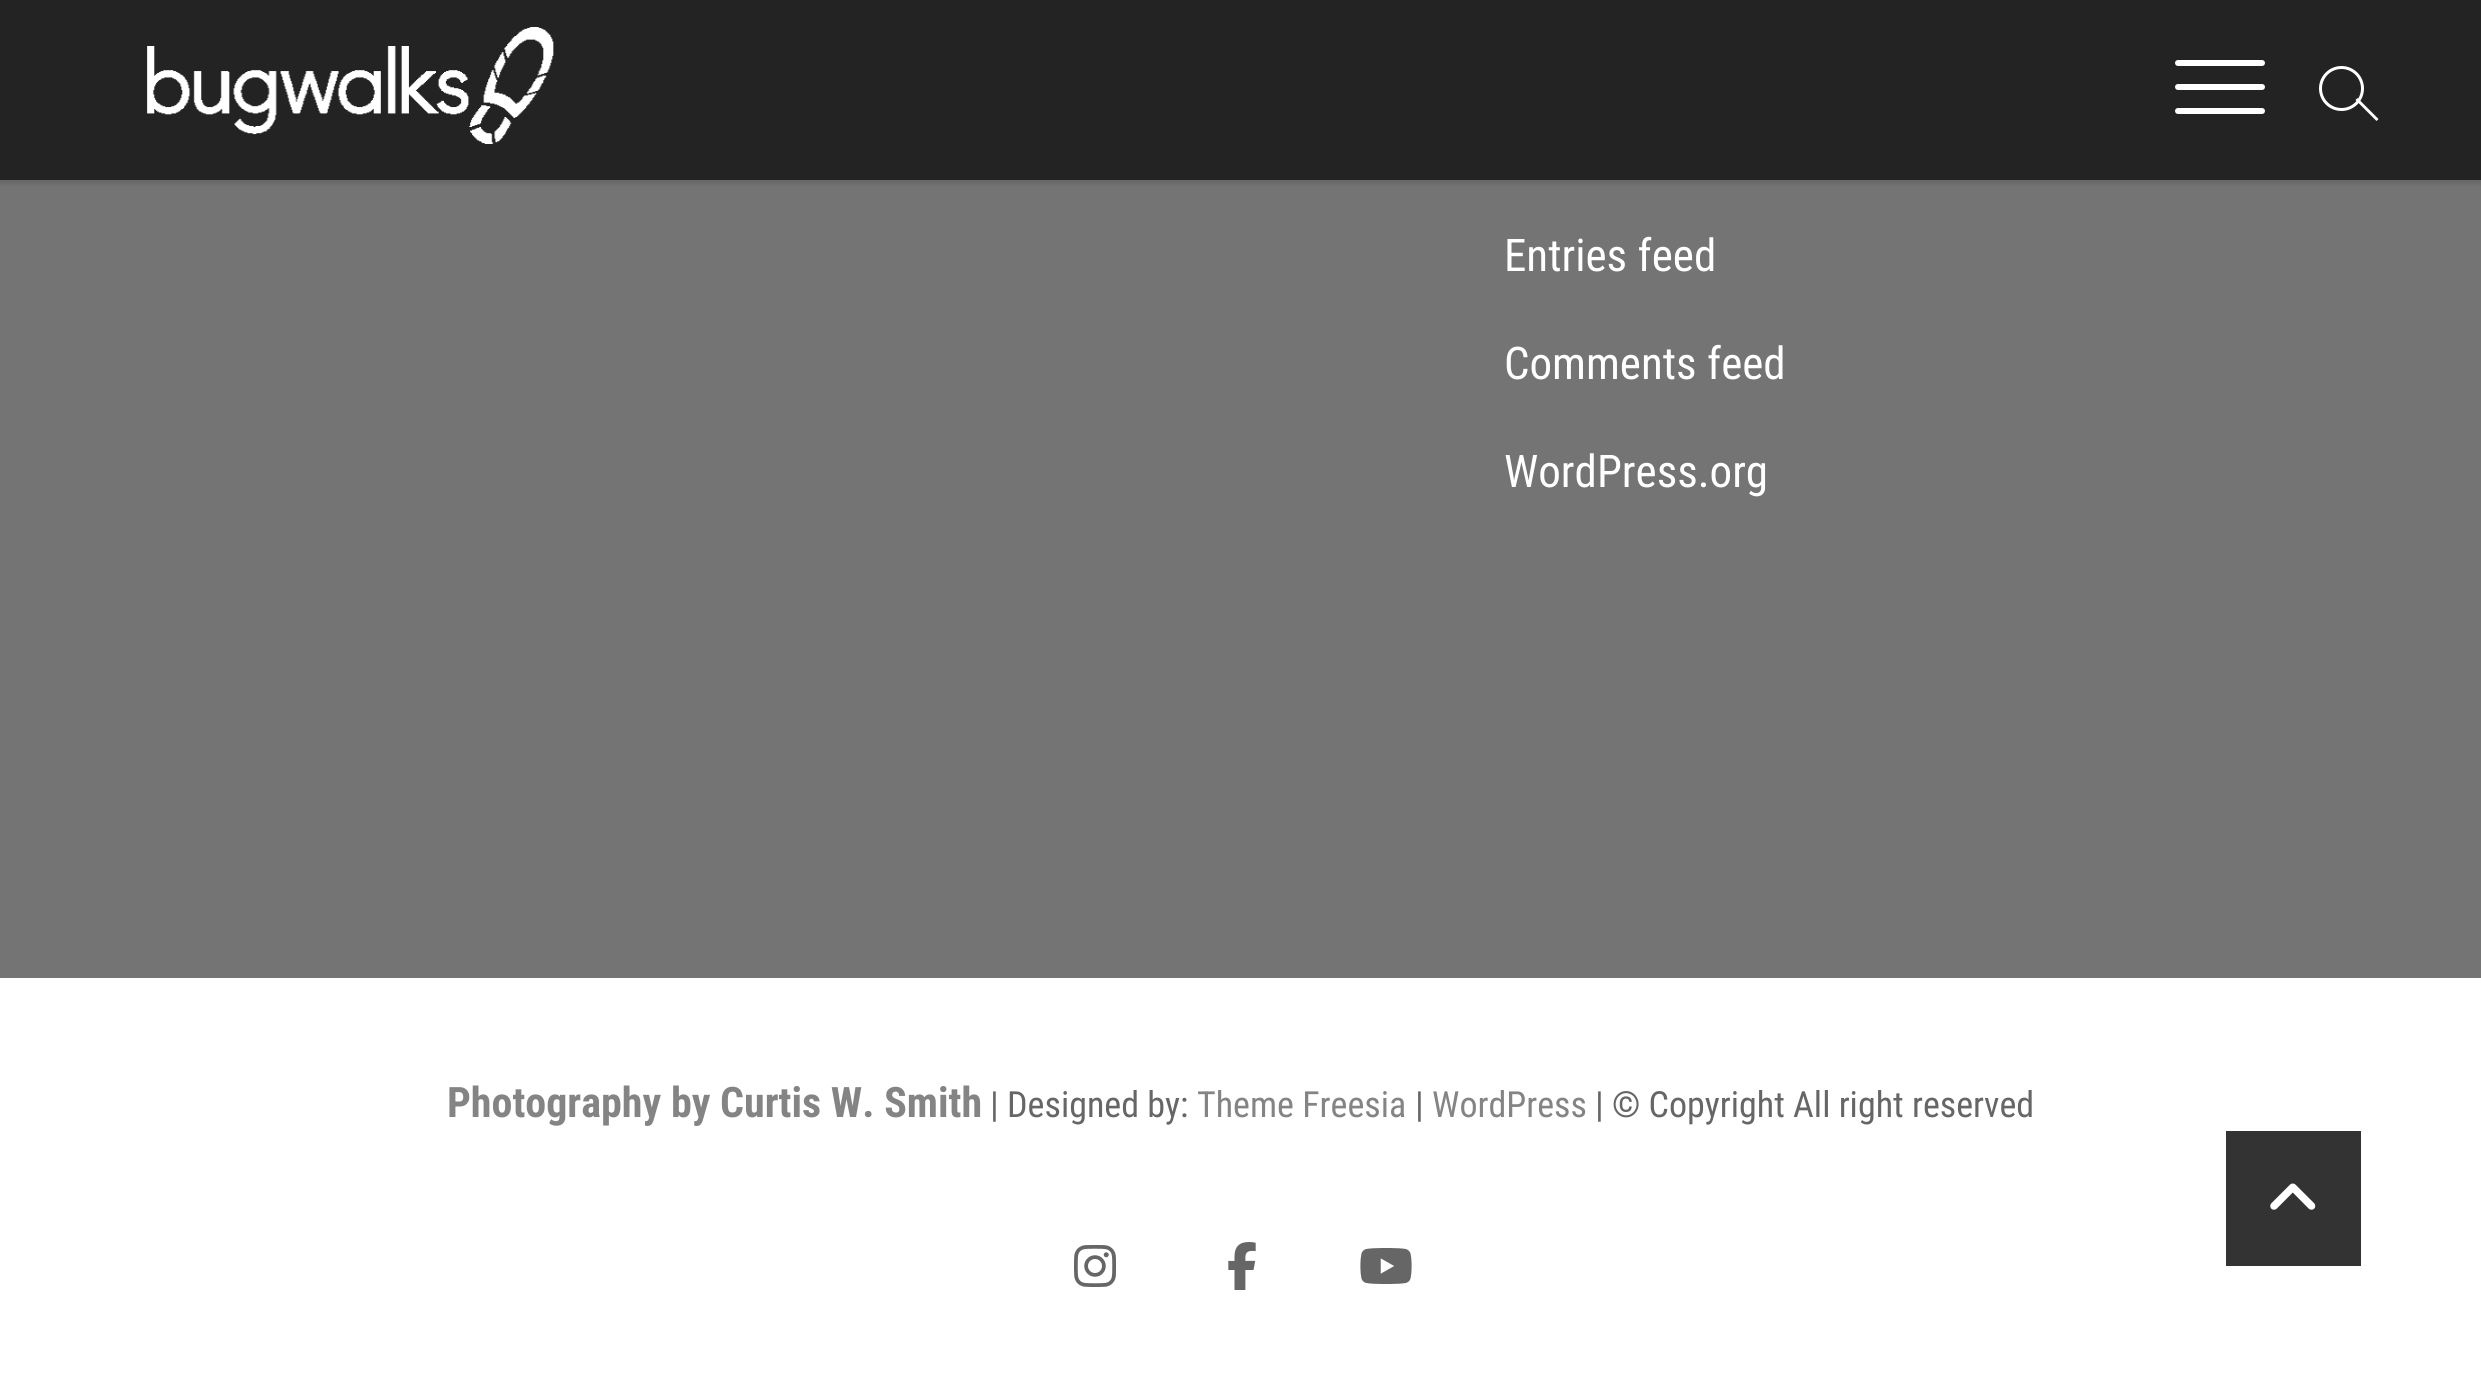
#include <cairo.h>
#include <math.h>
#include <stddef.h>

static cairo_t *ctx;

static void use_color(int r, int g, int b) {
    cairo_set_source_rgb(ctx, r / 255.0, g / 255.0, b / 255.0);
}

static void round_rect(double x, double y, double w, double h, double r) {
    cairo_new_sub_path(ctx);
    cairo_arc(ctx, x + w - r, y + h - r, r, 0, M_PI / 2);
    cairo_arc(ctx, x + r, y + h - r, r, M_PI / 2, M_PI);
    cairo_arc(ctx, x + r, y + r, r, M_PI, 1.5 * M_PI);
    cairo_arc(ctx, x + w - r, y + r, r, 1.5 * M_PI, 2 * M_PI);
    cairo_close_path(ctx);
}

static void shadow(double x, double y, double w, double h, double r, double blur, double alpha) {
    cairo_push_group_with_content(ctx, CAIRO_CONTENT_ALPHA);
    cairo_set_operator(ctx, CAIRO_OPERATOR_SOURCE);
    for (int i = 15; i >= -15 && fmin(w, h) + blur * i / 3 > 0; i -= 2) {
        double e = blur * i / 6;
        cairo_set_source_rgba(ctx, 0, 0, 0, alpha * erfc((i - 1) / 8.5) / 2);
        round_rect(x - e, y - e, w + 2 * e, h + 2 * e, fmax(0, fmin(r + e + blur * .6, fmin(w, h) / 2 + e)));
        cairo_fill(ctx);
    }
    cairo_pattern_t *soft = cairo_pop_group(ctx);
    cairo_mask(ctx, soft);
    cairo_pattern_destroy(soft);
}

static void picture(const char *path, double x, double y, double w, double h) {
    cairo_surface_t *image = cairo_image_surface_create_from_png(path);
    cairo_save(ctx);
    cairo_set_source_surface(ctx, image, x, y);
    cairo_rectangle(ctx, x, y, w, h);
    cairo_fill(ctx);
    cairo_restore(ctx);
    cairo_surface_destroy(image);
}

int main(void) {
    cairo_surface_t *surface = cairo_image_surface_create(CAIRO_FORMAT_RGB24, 2481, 1384);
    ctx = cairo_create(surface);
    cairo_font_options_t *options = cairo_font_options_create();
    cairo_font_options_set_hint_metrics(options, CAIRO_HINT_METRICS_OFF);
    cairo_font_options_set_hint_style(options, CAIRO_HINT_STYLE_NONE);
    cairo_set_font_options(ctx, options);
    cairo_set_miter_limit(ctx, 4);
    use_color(255, 255, 255);
    cairo_paint(ctx);
    use_color(116, 116, 116);
    cairo_rectangle(ctx, 0, 0, 2481, 978);
    cairo_fill(ctx);
    cairo_save(ctx);
    cairo_rectangle(ctx, 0, 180, 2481, 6);
    cairo_clip(ctx);
    use_color(0, 0, 0);
    shadow(0, 3, 2481, 180, 0, 3, 0.15);
    cairo_restore(ctx);
    cairo_set_source_rgba(ctx, 0, 0, 0, 0.7);
    cairo_rectangle(ctx, 0, 0, 2481, 180);
    cairo_fill(ctx);
    picture("img1.png", 147, 27, 407, 117);
    use_color(255, 255, 255);
    round_rect(2175, 84, 90, 6, 3);
    cairo_fill(ctx);
    round_rect(2175, 60, 90, 6, 3);
    cairo_fill(ctx);
    round_rect(2175, 108, 90, 6, 3);
    cairo_fill(ctx);
    cairo_arc(ctx, 2341.5, 88.5, 21, 0, 2 * M_PI);
    cairo_set_line_width(ctx, 3);
    cairo_stroke(ctx);
    cairo_new_path(ctx);
    cairo_move_to(ctx, 2355.5, 100);
    cairo_line_to(ctx, 2357.5, 98);
    cairo_line_to(ctx, 2378.5, 119);
    cairo_line_to(ctx, 2376.5, 121);
    cairo_close_path(ctx);
    cairo_fill(ctx);
    cairo_select_font_face(ctx, "Roboto Condensed", CAIRO_FONT_SLANT_NORMAL, CAIRO_FONT_WEIGHT_NORMAL);
    cairo_set_font_size(ctx, 45);
    cairo_move_to(ctx, 1504, 271);
    cairo_show_text(ctx, "Entries feed");
    cairo_move_to(ctx, 1504, 379);
    cairo_show_text(ctx, "Comments feed");
    cairo_move_to(ctx, 1504, 487);
    cairo_show_text(ctx, "WordPress.org");
    cairo_select_font_face(ctx, "Roboto Condensed", CAIRO_FONT_SLANT_NORMAL, CAIRO_FONT_WEIGHT_BOLD);
    cairo_set_font_size(ctx, 42);
    use_color(132, 132, 132);
    cairo_move_to(ctx, 447, 1117);
    cairo_show_text(ctx, "Photography by Curtis W. Smith");
    cairo_select_font_face(ctx, "Roboto Condensed", CAIRO_FONT_SLANT_NORMAL, CAIRO_FONT_WEIGHT_NORMAL);
    cairo_set_font_size(ctx, 36);
    use_color(102, 102, 102);
    cairo_move_to(ctx, 990, 1117);
    cairo_show_text(ctx, "| Designed by:");
    use_color(132, 132, 132);
    cairo_move_to(ctx, 1197, 1117);
    cairo_show_text(ctx, "Theme Freesia");
    use_color(102, 102, 102);
    cairo_move_to(ctx, 1415, 1117);
    cairo_show_text(ctx, "|");
    use_color(132, 132, 132);
    cairo_move_to(ctx, 1432, 1117);
    cairo_show_text(ctx, "WordPress");
    use_color(102, 102, 102);
    cairo_move_to(ctx, 1595, 1117);
    cairo_show_text(ctx, "| © Copyright All right reserved");
    picture("img2.png", 1074, 1245, 42, 42);
    picture("img3.png", 1228, 1242, 28, 48);
    picture("img4.png", 1360, 1248, 52, 36);
    use_color(51, 51, 51);
    cairo_rectangle(ctx, 2226, 1131, 135, 135);
    cairo_fill(ctx);
    picture("img5.png", 2270, 1183, 46, 27);
    cairo_surface_write_to_png(surface, "result.png");
    cairo_font_options_destroy(options);
    cairo_destroy(ctx);
    cairo_surface_destroy(surface);
    return 0;
}
